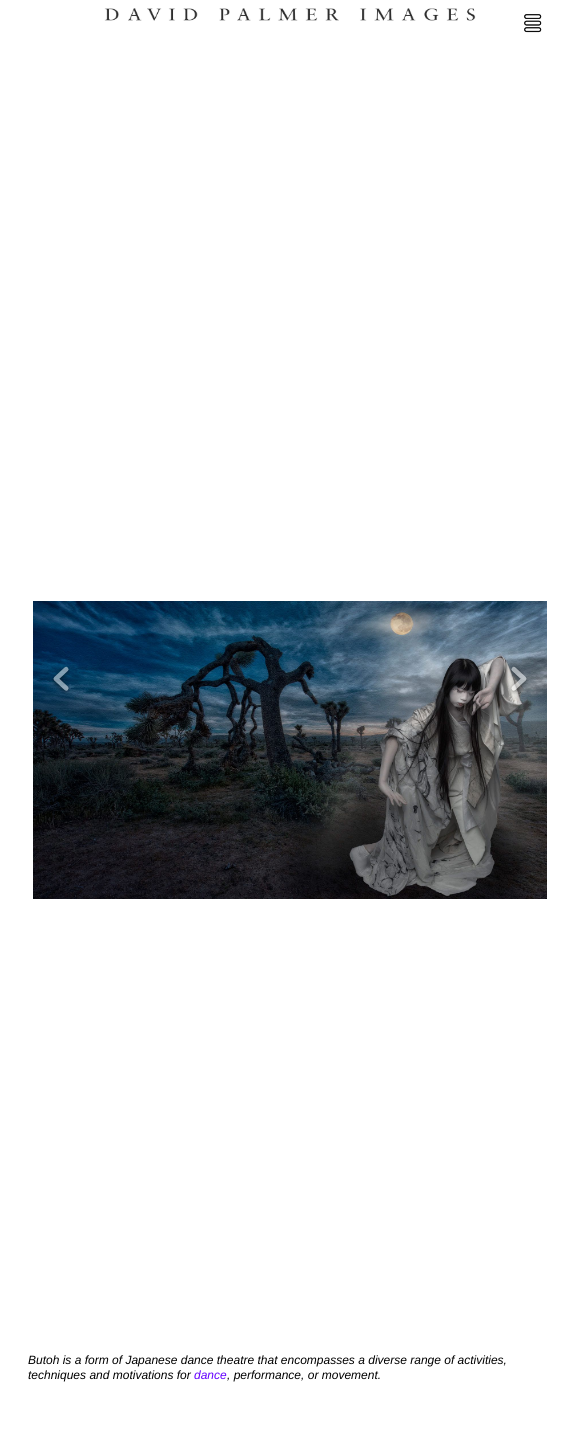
#include <cairo.h>
#include <math.h>
#include <stddef.h>

static cairo_t *ctx;

static void use_color(int r, int g, int b) {
    cairo_set_source_rgb(ctx, r / 255.0, g / 255.0, b / 255.0);
}

static void picture(const char *path, double x, double y, double w, double h) {
    cairo_surface_t *image = cairo_image_surface_create_from_png(path);
    cairo_save(ctx);
    cairo_set_source_surface(ctx, image, x, y);
    cairo_rectangle(ctx, x, y, w, h);
    cairo_fill(ctx);
    cairo_restore(ctx);
    cairo_surface_destroy(image);
}

int main(void) {
    cairo_surface_t *surface = cairo_image_surface_create(CAIRO_FORMAT_RGB24, 580, 1454);
    ctx = cairo_create(surface);
    cairo_font_options_t *options = cairo_font_options_create();
    cairo_font_options_set_hint_metrics(options, CAIRO_HINT_METRICS_OFF);
    cairo_font_options_set_hint_style(options, CAIRO_HINT_STYLE_NONE);
    cairo_set_font_options(ctx, options);
    cairo_set_miter_limit(ctx, 4);
    use_color(255, 255, 255);
    cairo_paint(ctx);
    picture("img1.png", 104, 8, 372, 13);
    picture("img2.png", 524, 14, 18, 19);
    picture("img3.png", 33, 601, 514, 298);
    picture("img4.png", 52, 666, 18, 28);
    picture("img5.png", 509, 666, 20, 28);
    cairo_select_font_face(ctx, "Liberation Sans", CAIRO_FONT_SLANT_ITALIC, CAIRO_FONT_WEIGHT_NORMAL);
    cairo_set_font_size(ctx, 12);
    use_color(0, 0, 0);
    cairo_move_to(ctx, 28, 1364);
    cairo_show_text(ctx, "Butoh is a form of Japanese dance theatre that encompasses a diverse range of activities,");
    cairo_move_to(ctx, 28, 1379);
    cairo_show_text(ctx, "techniques and motivations for");
    use_color(100, 0, 255);
    cairo_move_to(ctx, 194, 1379);
    cairo_show_text(ctx, "dance");
    use_color(0, 0, 0);
    cairo_move_to(ctx, 227, 1379);
    cairo_show_text(ctx, ", performance, or movement.");
    cairo_surface_write_to_png(surface, "result.png");
    cairo_font_options_destroy(options);
    cairo_destroy(ctx);
    cairo_surface_destroy(surface);
    return 0;
}
